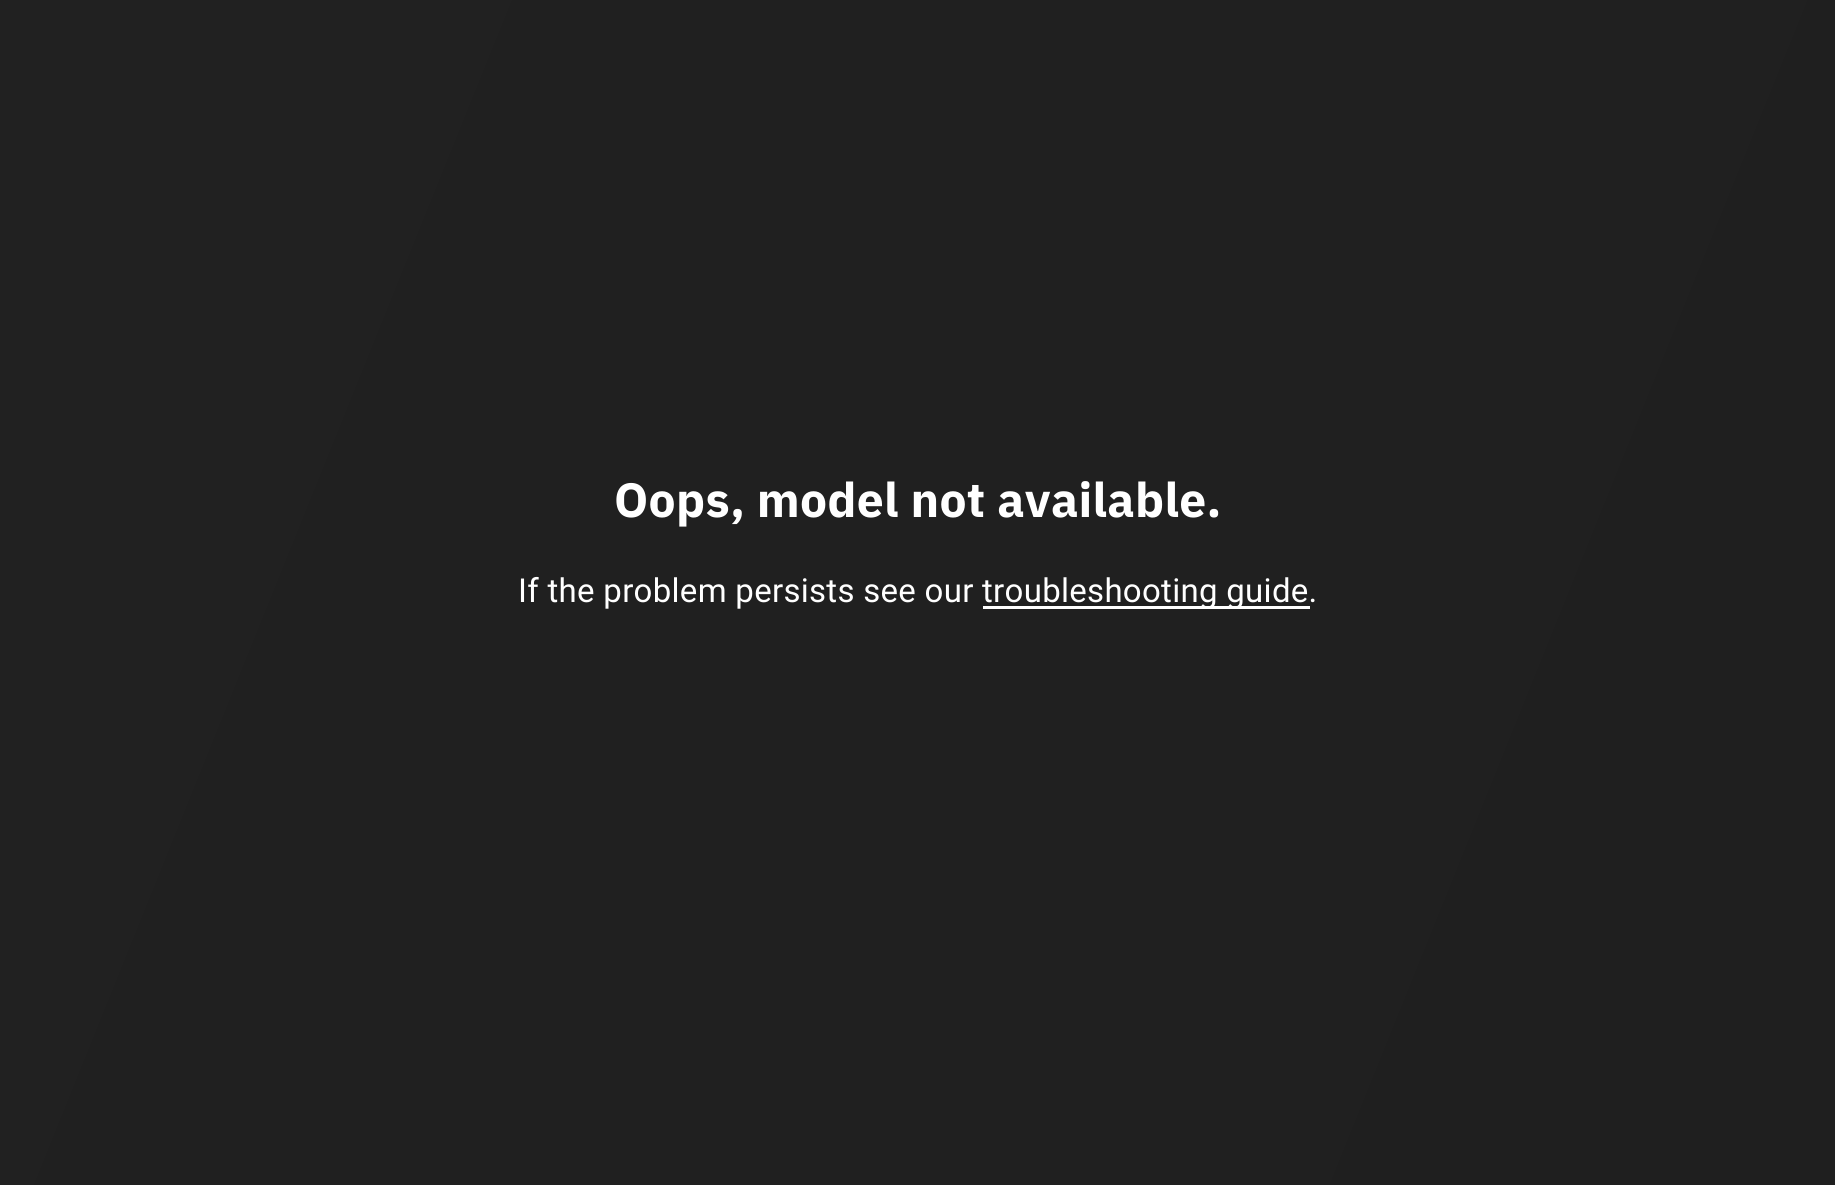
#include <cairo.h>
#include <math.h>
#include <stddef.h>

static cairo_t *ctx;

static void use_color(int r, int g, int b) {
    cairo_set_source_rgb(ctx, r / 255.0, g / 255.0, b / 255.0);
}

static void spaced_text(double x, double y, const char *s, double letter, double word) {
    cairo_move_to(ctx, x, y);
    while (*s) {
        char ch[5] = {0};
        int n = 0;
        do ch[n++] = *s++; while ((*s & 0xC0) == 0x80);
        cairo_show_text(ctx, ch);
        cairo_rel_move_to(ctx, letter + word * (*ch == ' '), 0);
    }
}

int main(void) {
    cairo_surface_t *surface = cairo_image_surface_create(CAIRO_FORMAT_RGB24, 1835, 1185);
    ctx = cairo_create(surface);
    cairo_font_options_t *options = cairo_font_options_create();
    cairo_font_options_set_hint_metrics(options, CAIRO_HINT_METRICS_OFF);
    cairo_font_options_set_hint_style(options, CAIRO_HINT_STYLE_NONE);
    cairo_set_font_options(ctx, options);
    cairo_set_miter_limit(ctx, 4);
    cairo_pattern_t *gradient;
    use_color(255, 255, 255);
    cairo_paint(ctx);
    gradient = cairo_pattern_create_linear(-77, 191, 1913, 994);
    cairo_pattern_add_color_stop_rgba(gradient, 0, 0.129, 0.129, 0.129, 1);
    cairo_pattern_add_color_stop_rgba(gradient, 1, 0.122, 0.122, 0.122, 1);
    cairo_set_source(ctx, gradient);
    cairo_pattern_destroy(gradient);
    cairo_rectangle(ctx, 0, 0, 1835, 1185);
    cairo_fill(ctx);
    cairo_select_font_face(ctx, "IBM Plex Sans", CAIRO_FONT_SLANT_NORMAL, CAIRO_FONT_WEIGHT_BOLD);
    cairo_set_font_size(ctx, 48);
    use_color(255, 255, 255);
    spaced_text(614, 517, "Oops, model not available.", 0.3, 0);
    cairo_select_font_face(ctx, "Roboto", CAIRO_FONT_SLANT_NORMAL, CAIRO_FONT_WEIGHT_NORMAL);
    cairo_set_font_size(ctx, 33);
    spaced_text(518, 602, "If the problem persists see our", 0.3, 0);
    cairo_rectangle(ctx, 983, 606, 327, 3);
    cairo_fill(ctx);
    spaced_text(982, 602, "troubleshooting guide.", 0.3, 0);
    cairo_surface_write_to_png(surface, "result.png");
    cairo_font_options_destroy(options);
    cairo_destroy(ctx);
    cairo_surface_destroy(surface);
    return 0;
}
